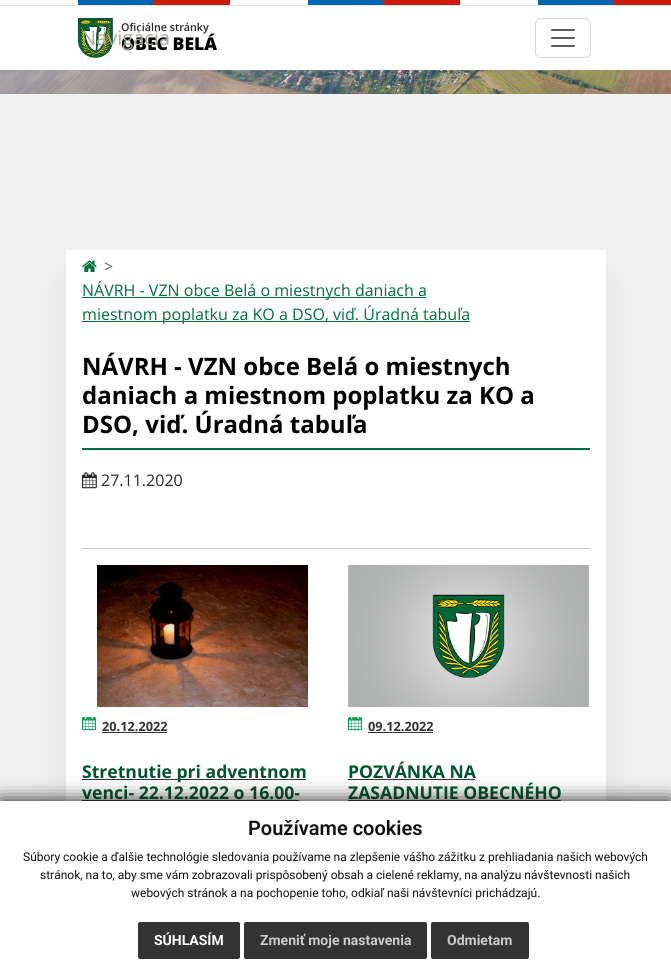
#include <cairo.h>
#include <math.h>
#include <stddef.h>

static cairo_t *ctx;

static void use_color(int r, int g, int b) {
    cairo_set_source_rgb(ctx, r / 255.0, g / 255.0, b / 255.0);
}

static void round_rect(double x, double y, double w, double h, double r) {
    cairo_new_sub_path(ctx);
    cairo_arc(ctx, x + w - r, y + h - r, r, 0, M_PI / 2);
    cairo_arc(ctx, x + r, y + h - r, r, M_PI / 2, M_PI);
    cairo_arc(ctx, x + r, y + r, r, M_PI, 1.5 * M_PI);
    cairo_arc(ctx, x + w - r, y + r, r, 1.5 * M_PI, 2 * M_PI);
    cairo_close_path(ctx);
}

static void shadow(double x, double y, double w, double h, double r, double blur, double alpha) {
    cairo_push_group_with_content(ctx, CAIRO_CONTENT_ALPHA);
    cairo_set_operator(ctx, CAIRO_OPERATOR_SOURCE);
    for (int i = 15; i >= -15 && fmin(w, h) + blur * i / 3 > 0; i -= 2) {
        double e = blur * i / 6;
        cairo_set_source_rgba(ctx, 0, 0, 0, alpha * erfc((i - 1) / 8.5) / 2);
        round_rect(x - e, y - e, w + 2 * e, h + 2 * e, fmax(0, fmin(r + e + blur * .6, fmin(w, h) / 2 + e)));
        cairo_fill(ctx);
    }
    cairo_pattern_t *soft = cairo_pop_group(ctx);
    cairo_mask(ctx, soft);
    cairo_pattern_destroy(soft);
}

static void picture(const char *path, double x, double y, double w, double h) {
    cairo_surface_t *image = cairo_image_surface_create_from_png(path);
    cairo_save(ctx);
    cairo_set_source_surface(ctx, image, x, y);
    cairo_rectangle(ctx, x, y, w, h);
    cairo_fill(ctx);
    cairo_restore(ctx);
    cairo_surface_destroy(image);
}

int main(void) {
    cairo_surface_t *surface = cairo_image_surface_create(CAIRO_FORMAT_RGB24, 671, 968);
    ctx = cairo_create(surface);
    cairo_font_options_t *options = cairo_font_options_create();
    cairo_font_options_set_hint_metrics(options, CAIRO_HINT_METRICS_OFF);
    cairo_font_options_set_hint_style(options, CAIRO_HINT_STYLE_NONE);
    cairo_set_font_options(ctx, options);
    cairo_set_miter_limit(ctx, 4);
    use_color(241, 241, 241);
    cairo_paint(ctx);
    picture("img1.png", 0, 0, 671, 5);
    use_color(255, 255, 255);
    cairo_rectangle(ctx, 0, 6, 671, 64);
    cairo_fill(ctx);
    use_color(230, 230, 230);
    cairo_rectangle(ctx, 0, 5, 671, 1);
    cairo_fill(ctx);
    picture("img2.png", 78, 18, 35, 40);
    cairo_select_font_face(ctx, "Open Sans SemiBold", CAIRO_FONT_SLANT_NORMAL, CAIRO_FONT_WEIGHT_NORMAL);
    cairo_set_font_size(ctx, 10.75);
    use_color(40, 40, 40);
    cairo_move_to(ctx, 121, 31);
    cairo_show_text(ctx, "Oficiálne stránky");
    cairo_select_font_face(ctx, "Open Sans ExtraBold", CAIRO_FONT_SLANT_NORMAL, CAIRO_FONT_WEIGHT_NORMAL);
    cairo_set_font_size(ctx, 17.6);
    use_color(0, 0, 0);
    cairo_move_to(ctx, 121, 50);
    cairo_show_text(ctx, "OBEC BELÁ");
    cairo_select_font_face(ctx, "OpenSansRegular", CAIRO_FONT_SLANT_NORMAL, CAIRO_FONT_WEIGHT_NORMAL);
    cairo_set_font_size(ctx, 20);
    use_color(166, 173, 161);
    cairo_move_to(ctx, 81, 45);
    cairo_show_text(ctx, "Navigácia");
    round_rect(535.5, 18.5, 55, 39, 5.5);
    use_color(217, 217, 217);
    cairo_set_line_width(ctx, 1);
    cairo_stroke(ctx);
    picture("img3.png", 551, 29, 24, 18);
    picture("img4.png", 0, 70, 671, 24);
    use_color(0, 0, 0);
    shadow(66, 280, 540, 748, 0, 20, 0.07);
    use_color(255, 255, 255);
    cairo_rectangle(ctx, 66, 250, 540, 551);
    cairo_fill(ctx);
    picture("img5.png", 82, 260, 15, 12);
    cairo_set_font_size(ctx, 16);
    use_color(89, 92, 95);
    cairo_move_to(ctx, 104, 272);
    cairo_show_text(ctx, ">");
    use_color(0, 112, 60);
    cairo_rectangle(ctx, 82, 297, 344, 1);
    cairo_fill(ctx);
    cairo_move_to(ctx, 82, 296);
    cairo_show_text(ctx, "NÁVRH - VZN obce Belá o miestnych daniach a");
    cairo_rectangle(ctx, 82, 321, 388, 1);
    cairo_fill(ctx);
    cairo_move_to(ctx, 82, 320);
    cairo_show_text(ctx, "miestnom poplatku za KO a DSO, viď. Úradná tabuľa");
    cairo_rectangle(ctx, 82, 448, 508, 2);
    cairo_fill(ctx);
    cairo_select_font_face(ctx, "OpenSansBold", CAIRO_FONT_SLANT_NORMAL, CAIRO_FONT_WEIGHT_BOLD);
    cairo_set_font_size(ctx, 24);
    use_color(0, 0, 0);
    cairo_move_to(ctx, 82, 375);
    cairo_show_text(ctx, "NÁVRH - VZN obce Belá o miestnych");
    cairo_move_to(ctx, 82, 404);
    cairo_show_text(ctx, "daniach a miestnom poplatku za KO a");
    cairo_move_to(ctx, 82, 433);
    cairo_show_text(ctx, "DSO, viď. Úradná tabuľa");
    picture("img6.png", 82, 472, 15, 17);
    cairo_select_font_face(ctx, "OpenSansRegular", CAIRO_FONT_SLANT_NORMAL, CAIRO_FONT_WEIGHT_NORMAL);
    cairo_set_font_size(ctx, 16);
    use_color(40, 40, 40);
    cairo_move_to(ctx, 101, 486);
    cairo_show_text(ctx, "27.11.2020");
    use_color(201, 201, 201);
    cairo_rectangle(ctx, 82, 548, 508, 1);
    cairo_fill(ctx);
    picture("img7.png", 97, 565, 211, 142);
    picture("img8.png", 82, 717, 14, 14);
    cairo_select_font_face(ctx, "OpenSansBold", CAIRO_FONT_SLANT_NORMAL, CAIRO_FONT_WEIGHT_BOLD);
    cairo_set_font_size(ctx, 12.75);
    use_color(51, 51, 51);
    cairo_move_to(ctx, 102, 731);
    cairo_show_text(ctx, "20.12.2022");
    cairo_rectangle(ctx, 102, 732, 65, 1);
    cairo_fill(ctx);
    cairo_rectangle(ctx, 82, 779, 224, 1);
    cairo_fill(ctx);
    cairo_set_font_size(ctx, 17.6);
    use_color(0, 84, 45);
    cairo_move_to(ctx, 82, 778);
    cairo_show_text(ctx, "Stretnutie pri adventnom");
    cairo_move_to(ctx, 82, 799);
    cairo_show_text(ctx, "venci- 22.12.2022 o 16.00-");
    use_color(51, 51, 51);
    cairo_rectangle(ctx, 82, 800, 217, 1);
    cairo_fill(ctx);
    picture("img9.png", 348, 565, 242, 142);
    picture("img8.png", 348, 717, 14, 14);
    cairo_set_font_size(ctx, 12.75);
    cairo_move_to(ctx, 368, 731);
    cairo_show_text(ctx, "09.12.2022");
    cairo_rectangle(ctx, 368, 732, 65, 1);
    cairo_fill(ctx);
    cairo_set_font_size(ctx, 17.6);
    use_color(0, 84, 45);
    cairo_move_to(ctx, 348, 778);
    cairo_show_text(ctx, "POZVÁNKA NA");
    use_color(51, 51, 51);
    cairo_rectangle(ctx, 348, 779, 127, 1);
    cairo_fill(ctx);
    use_color(0, 84, 45);
    cairo_move_to(ctx, 348, 799);
    cairo_show_text(ctx, "ZASADNUTIE OBECNÉHO");
    use_color(51, 51, 51);
    cairo_rectangle(ctx, 348, 800, 213, 1);
    cairo_fill(ctx);
    use_color(17, 17, 17);
    shadow(0, 801, 671, 167, 0, 10, 1);
    use_color(255, 255, 255);
    cairo_rectangle(ctx, 0, 801, 671, 167);
    cairo_fill(ctx);
    cairo_select_font_face(ctx, "Roboto SemiBold", CAIRO_FONT_SLANT_NORMAL, CAIRO_FONT_WEIGHT_NORMAL);
    cairo_set_font_size(ctx, 20);
    use_color(17, 17, 17);
    cairo_move_to(ctx, 248, 835);
    cairo_show_text(ctx, "Používame cookies");
    cairo_select_font_face(ctx, "Roboto", CAIRO_FONT_SLANT_NORMAL, CAIRO_FONT_WEIGHT_NORMAL);
    cairo_set_font_size(ctx, 12);
    cairo_move_to(ctx, 23, 861);
    cairo_show_text(ctx, "Súbory cookie a ďalšie technológie sledovania používame na zlepšenie vášho zážitku z prehliadania našich webových");
    cairo_move_to(ctx, 40, 879);
    cairo_show_text(ctx, "stránok, na to, aby sme vám zobrazovali prispôsobený obsah a cielené reklamy, na analýzu návštevnosti našich");
    cairo_move_to(ctx, 131, 897);
    cairo_show_text(ctx, "webových stránok a na pochopenie toho, odkiaľ naši návštevníci prichádzajú.");
    use_color(51, 51, 51);
    round_rect(138, 922, 102, 37, 2);
    cairo_fill(ctx);
    cairo_select_font_face(ctx, "Roboto", CAIRO_FONT_SLANT_NORMAL, CAIRO_FONT_WEIGHT_BOLD);
    cairo_set_font_size(ctx, 14);
    use_color(255, 255, 255);
    cairo_move_to(ctx, 154, 945);
    cairo_show_text(ctx, "SÚHLASÍM");
    use_color(51, 51, 51);
    round_rect(244, 922, 183, 37, 2);
    cairo_fill(ctx);
    use_color(204, 204, 204);
    cairo_move_to(ctx, 260, 945);
    cairo_show_text(ctx, "Zmeniť moje nastavenia");
    use_color(51, 51, 51);
    round_rect(431, 922, 98, 37, 2);
    cairo_fill(ctx);
    use_color(204, 204, 204);
    cairo_move_to(ctx, 447, 945);
    cairo_show_text(ctx, "Odmietam");
    cairo_surface_write_to_png(surface, "result.png");
    cairo_font_options_destroy(options);
    cairo_destroy(ctx);
    cairo_surface_destroy(surface);
    return 0;
}
